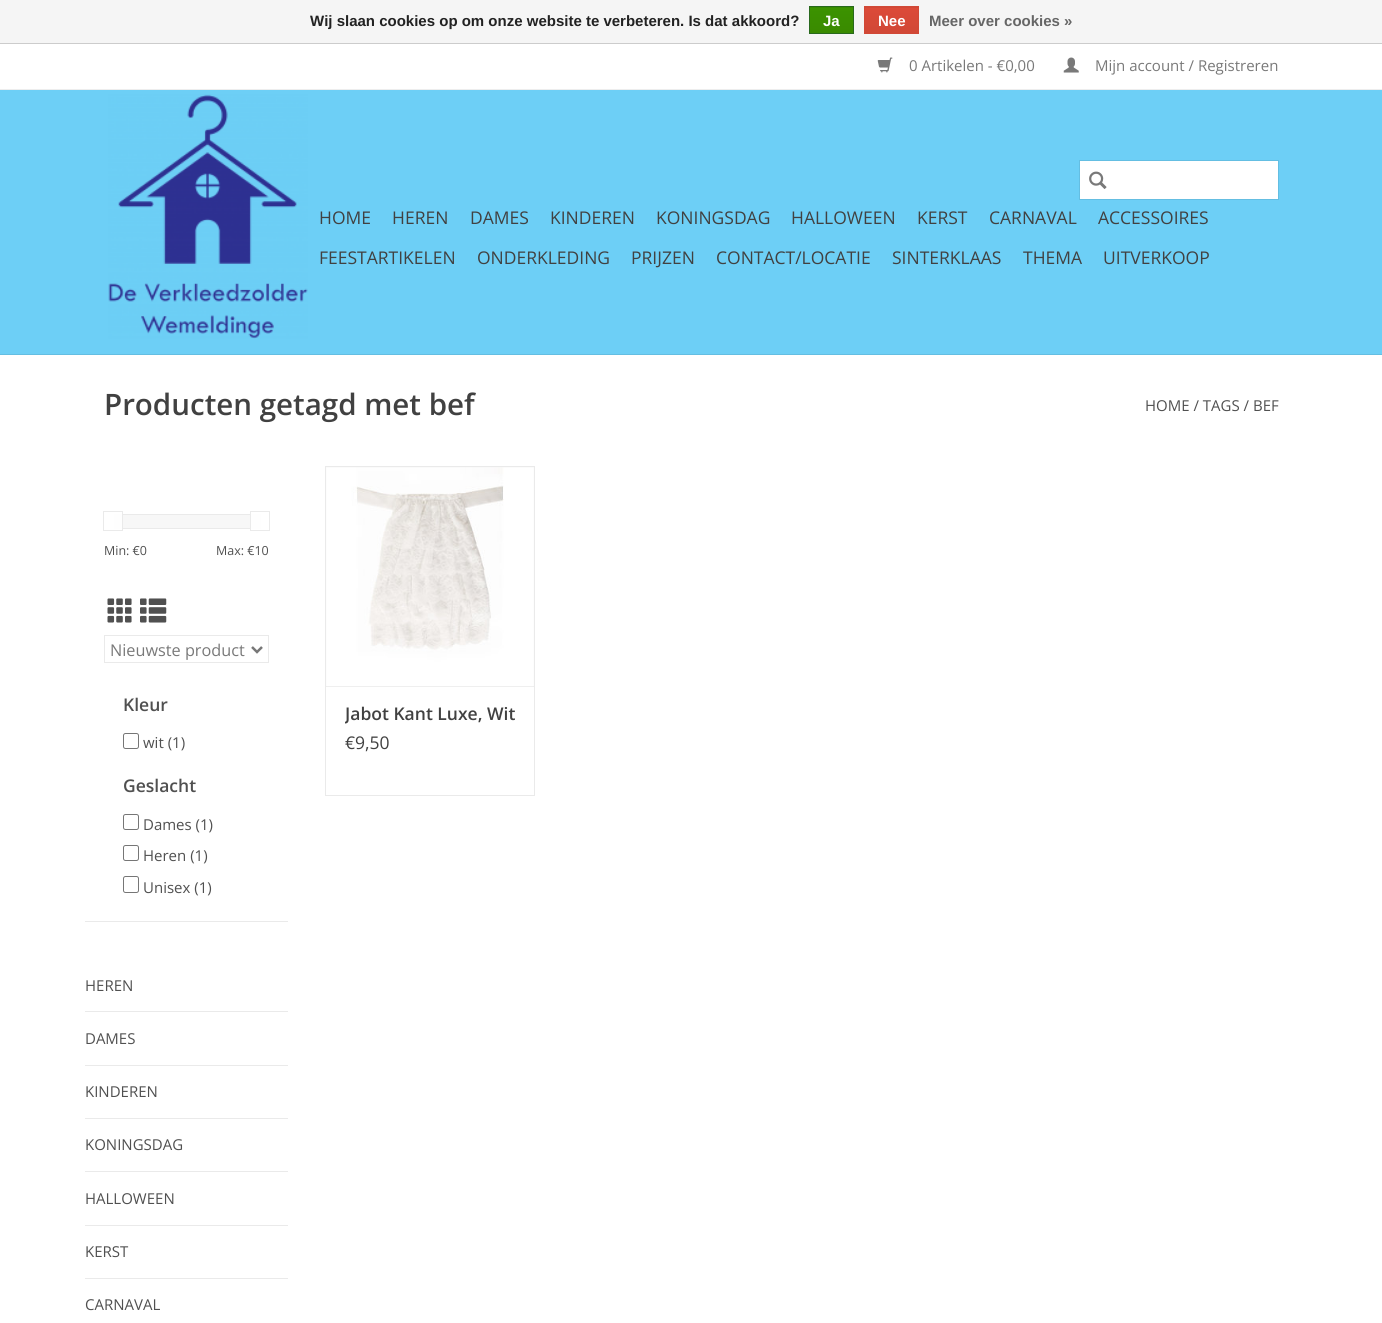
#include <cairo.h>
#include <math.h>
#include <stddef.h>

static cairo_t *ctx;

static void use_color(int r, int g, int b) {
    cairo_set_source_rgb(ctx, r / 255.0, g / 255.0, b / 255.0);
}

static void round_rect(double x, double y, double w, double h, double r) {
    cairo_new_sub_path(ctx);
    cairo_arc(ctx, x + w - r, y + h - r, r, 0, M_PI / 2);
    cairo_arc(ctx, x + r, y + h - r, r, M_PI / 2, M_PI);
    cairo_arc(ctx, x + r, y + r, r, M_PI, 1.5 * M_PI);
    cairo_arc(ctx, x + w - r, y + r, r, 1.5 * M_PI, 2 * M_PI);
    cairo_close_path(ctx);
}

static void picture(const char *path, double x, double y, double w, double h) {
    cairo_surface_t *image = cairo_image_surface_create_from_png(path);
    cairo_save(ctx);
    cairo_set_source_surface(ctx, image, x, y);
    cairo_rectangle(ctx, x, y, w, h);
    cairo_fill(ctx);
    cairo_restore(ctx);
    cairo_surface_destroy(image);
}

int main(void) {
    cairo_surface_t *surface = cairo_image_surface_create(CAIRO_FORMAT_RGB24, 1382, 1323);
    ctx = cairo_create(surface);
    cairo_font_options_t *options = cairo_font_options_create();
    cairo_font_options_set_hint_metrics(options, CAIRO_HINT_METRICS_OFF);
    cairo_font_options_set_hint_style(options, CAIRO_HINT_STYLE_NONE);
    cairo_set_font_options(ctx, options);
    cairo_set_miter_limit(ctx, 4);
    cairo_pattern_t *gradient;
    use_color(255, 255, 255);
    cairo_paint(ctx);
    use_color(245, 245, 245);
    cairo_rectangle(ctx, 0, 0, 1382, 43);
    cairo_fill(ctx);
    use_color(204, 204, 204);
    cairo_rectangle(ctx, 0, 43, 1382, 1);
    cairo_fill(ctx);
    cairo_select_font_face(ctx, "Liberation Sans", CAIRO_FONT_SLANT_NORMAL, CAIRO_FONT_WEIGHT_BOLD);
    cairo_set_font_size(ctx, 15);
    use_color(34, 34, 34);
    cairo_move_to(ctx, 310, 26);
    cairo_show_text(ctx, "Wij slaan cookies op om onze website te verbeteren. Is dat akkoord?");
    gradient = cairo_pattern_create_linear(831, -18, 831, 7.5);
    cairo_pattern_add_color_stop_rgba(gradient, 0, 0.235, 0.576, 0, 1);
    cairo_pattern_add_color_stop_rgba(gradient, 1, 0.224, 0.541, 0, 1);
    cairo_set_source(ctx, gradient);
    cairo_pattern_destroy(gradient);
    cairo_rectangle(ctx, 809, 7, 45, 1);
    cairo_fill(ctx);
    gradient = cairo_pattern_create_linear(831, 7.5, 831, 33);
    cairo_pattern_add_color_stop_rgba(gradient, 0, 0.235, 0.576, 0, 1);
    cairo_pattern_add_color_stop_rgba(gradient, 1, 0.224, 0.541, 0, 1);
    cairo_set_source(ctx, gradient);
    cairo_pattern_destroy(gradient);
    cairo_rectangle(ctx, 810, 8, 43, 25);
    cairo_fill(ctx);
    cairo_rectangle(ctx, 809.5, 6.5, 44, 27);
    use_color(41, 105, 29);
    cairo_set_line_width(ctx, 1);
    cairo_stroke(ctx);
    use_color(255, 255, 255);
    cairo_move_to(ctx, 823, 26);
    cairo_show_text(ctx, "Ja");
    gradient = cairo_pattern_create_linear(891, -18, 891, 7.5);
    cairo_pattern_add_color_stop_rgba(gradient, 0, 0.863, 0.29, 0.22, 1);
    cairo_pattern_add_color_stop_rgba(gradient, 1, 0.82, 0.282, 0.212, 1);
    cairo_set_source(ctx, gradient);
    cairo_pattern_destroy(gradient);
    cairo_rectangle(ctx, 864, 7, 55, 1);
    cairo_fill(ctx);
    gradient = cairo_pattern_create_linear(891, 7.5, 891, 33);
    cairo_pattern_add_color_stop_rgba(gradient, 0, 0.863, 0.29, 0.22, 1);
    cairo_pattern_add_color_stop_rgba(gradient, 1, 0.82, 0.282, 0.212, 1);
    cairo_set_source(ctx, gradient);
    cairo_pattern_destroy(gradient);
    cairo_rectangle(ctx, 865, 8, 53, 25);
    cairo_fill(ctx);
    cairo_rectangle(ctx, 864.5, 6.5, 54, 27);
    use_color(209, 72, 54);
    cairo_stroke(ctx);
    use_color(255, 255, 255);
    cairo_move_to(ctx, 878, 26);
    cairo_show_text(ctx, "Nee");
    use_color(102, 102, 102);
    cairo_move_to(ctx, 929, 26);
    cairo_show_text(ctx, "Meer over cookies »");
    use_color(109, 207, 246);
    cairo_rectangle(ctx, 0, 90, 1382, 264);
    cairo_fill(ctx);
    use_color(100, 190, 226);
    cairo_rectangle(ctx, 0, 354, 1382, 1);
    cairo_fill(ctx);
    use_color(237, 237, 237);
    cairo_rectangle(ctx, 0, 89, 1382, 1);
    cairo_fill(ctx);
    picture("img1.png", 877, 57, 16, 16);
    cairo_select_font_face(ctx, "Open Sans", CAIRO_FONT_SLANT_NORMAL, CAIRO_FONT_WEIGHT_NORMAL);
    use_color(121, 121, 121);
    cairo_move_to(ctx, 909, 71);
    cairo_show_text(ctx, "0 Artikelen - €0,00");
    picture("img2.png", 1063, 57, 16, 16);
    cairo_move_to(ctx, 1095, 71);
    cairo_show_text(ctx, "Mijn account / Registreren");
    picture("img3.png", 108, 94, 200, 245);
    use_color(255, 255, 255);
    cairo_rectangle(ctx, 1079.5, 160.5, 199, 39);
    cairo_fill_preserve(ctx);
    use_color(100, 190, 226);
    cairo_stroke(ctx);
    picture("img4.png", 1089, 171, 18, 18);
    cairo_set_font_size(ctx, 17.5);
    use_color(65, 65, 65);
    cairo_move_to(ctx, 319, 224);
    cairo_show_text(ctx, "HOME");
    cairo_move_to(ctx, 392, 224);
    cairo_show_text(ctx, "HEREN");
    cairo_move_to(ctx, 470, 224);
    cairo_show_text(ctx, "DAMES");
    cairo_move_to(ctx, 550, 224);
    cairo_show_text(ctx, "KINDEREN");
    cairo_move_to(ctx, 656, 224);
    cairo_show_text(ctx, "KONINGSDAG");
    cairo_move_to(ctx, 791, 224);
    cairo_show_text(ctx, "HALLOWEEN");
    cairo_move_to(ctx, 917, 224);
    cairo_show_text(ctx, "KERST");
    cairo_move_to(ctx, 989, 224);
    cairo_show_text(ctx, "CARNAVAL");
    cairo_move_to(ctx, 1098, 224);
    cairo_show_text(ctx, "ACCESSOIRES");
    cairo_move_to(ctx, 319, 264);
    cairo_show_text(ctx, "FEESTARTIKELEN");
    cairo_move_to(ctx, 477, 264);
    cairo_show_text(ctx, "ONDERKLEDING");
    cairo_move_to(ctx, 631, 264);
    cairo_show_text(ctx, "PRIJZEN");
    cairo_move_to(ctx, 716, 264);
    cairo_show_text(ctx, "CONTACT/LOCATIE");
    cairo_move_to(ctx, 892, 264);
    cairo_show_text(ctx, "SINTERKLAAS");
    cairo_move_to(ctx, 1023, 264);
    cairo_show_text(ctx, "THEMA");
    cairo_move_to(ctx, 1103, 264);
    cairo_show_text(ctx, "UITVERKOOP");
    cairo_select_font_face(ctx, "Open Sans SemiBold", CAIRO_FONT_SLANT_NORMAL, CAIRO_FONT_WEIGHT_NORMAL);
    cairo_set_font_size(ctx, 29.5);
    cairo_move_to(ctx, 104, 415);
    cairo_show_text(ctx, "Producten getagd met bef");
    cairo_select_font_face(ctx, "Open Sans", CAIRO_FONT_SLANT_NORMAL, CAIRO_FONT_WEIGHT_NORMAL);
    cairo_set_font_size(ctx, 15);
    use_color(80, 80, 80);
    cairo_move_to(ctx, 1145, 411);
    cairo_show_text(ctx, "HOME / TAGS / BEF");
    use_color(234, 234, 234);
    cairo_rectangle(ctx, 85, 921, 203, 1);
    cairo_fill(ctx);
    use_color(247, 247, 247);
    cairo_rectangle(ctx, 123, 515, 127, 13);
    cairo_fill(ctx);
    cairo_rectangle(ctx, 114.5, 514.5, 146, 14);
    use_color(234, 234, 234);
    cairo_stroke(ctx);
    use_color(254, 254, 254);
    cairo_rectangle(ctx, 114, 514, 8, 15);
    cairo_fill(ctx);
    cairo_rectangle(ctx, 103.5, 511.5, 19, 19);
    use_color(234, 234, 234);
    cairo_stroke(ctx);
    use_color(254, 254, 254);
    cairo_rectangle(ctx, 251, 514, 10, 15);
    cairo_fill(ctx);
    cairo_rectangle(ctx, 250.5, 511.5, 19, 19);
    use_color(234, 234, 234);
    cairo_stroke(ctx);
    cairo_set_font_size(ctx, 12.5);
    use_color(80, 80, 80);
    cairo_move_to(ctx, 104, 555);
    cairo_show_text(ctx, "Min: €0");
    cairo_move_to(ctx, 216, 555);
    cairo_show_text(ctx, "Max: €10");
    picture("img5.png", 107, 598, 25, 25);
    picture("img6.png", 140, 598, 27, 25);
    cairo_rectangle(ctx, 104.5, 635.5, 164, 27);
    use_color(234, 234, 234);
    cairo_stroke(ctx);
    cairo_new_path(ctx);
    cairo_move_to(ctx, 252, 647);
    cairo_line_to(ctx, 257, 652);
    cairo_line_to(ctx, 262, 647);
    use_color(119, 119, 119);
    cairo_set_line_width(ctx, 2.5);
    cairo_stroke(ctx);
    cairo_set_font_size(ctx, 16.25);
    use_color(121, 121, 121);
    cairo_move_to(ctx, 110, 656);
    cairo_show_text(ctx, "Nieuwste product");
    cairo_select_font_face(ctx, "Open Sans SemiBold", CAIRO_FONT_SLANT_NORMAL, CAIRO_FONT_WEIGHT_NORMAL);
    cairo_set_font_size(ctx, 17.5);
    use_color(80, 80, 80);
    cairo_move_to(ctx, 123, 711);
    cairo_show_text(ctx, "Kleur");
    round_rect(123.5, 733.5, 15, 15, 2);
    use_color(118, 118, 118);
    cairo_set_line_width(ctx, 1);
    cairo_stroke(ctx);
    cairo_select_font_face(ctx, "Open Sans", CAIRO_FONT_SLANT_NORMAL, CAIRO_FONT_WEIGHT_NORMAL);
    cairo_set_font_size(ctx, 15);
    use_color(80, 80, 80);
    cairo_move_to(ctx, 143, 748);
    cairo_show_text(ctx, "wit (1)");
    cairo_select_font_face(ctx, "Open Sans SemiBold", CAIRO_FONT_SLANT_NORMAL, CAIRO_FONT_WEIGHT_NORMAL);
    cairo_set_font_size(ctx, 17.5);
    cairo_move_to(ctx, 123, 792);
    cairo_show_text(ctx, "Geslacht");
    round_rect(123.5, 814.5, 15, 15, 2);
    use_color(118, 118, 118);
    cairo_stroke(ctx);
    cairo_select_font_face(ctx, "Open Sans", CAIRO_FONT_SLANT_NORMAL, CAIRO_FONT_WEIGHT_NORMAL);
    cairo_set_font_size(ctx, 15);
    use_color(80, 80, 80);
    cairo_move_to(ctx, 143, 830);
    cairo_show_text(ctx, "Dames (1)");
    round_rect(123.5, 845.5, 15, 15, 2);
    use_color(118, 118, 118);
    cairo_stroke(ctx);
    use_color(80, 80, 80);
    cairo_move_to(ctx, 143, 861);
    cairo_show_text(ctx, "Heren (1)");
    round_rect(123.5, 876.5, 15, 16, 2);
    use_color(118, 118, 118);
    cairo_stroke(ctx);
    use_color(80, 80, 80);
    cairo_move_to(ctx, 143, 893);
    cairo_show_text(ctx, "Unisex (1)");
    use_color(234, 234, 234);
    cairo_rectangle(ctx, 85, 1011, 203, 1);
    cairo_fill(ctx);
    use_color(80, 80, 80);
    cairo_move_to(ctx, 85, 991);
    cairo_show_text(ctx, "HEREN");
    use_color(234, 234, 234);
    cairo_rectangle(ctx, 85, 1065, 203, 1);
    cairo_fill(ctx);
    use_color(80, 80, 80);
    cairo_move_to(ctx, 85, 1044);
    cairo_show_text(ctx, "DAMES");
    use_color(234, 234, 234);
    cairo_rectangle(ctx, 85, 1118, 203, 1);
    cairo_fill(ctx);
    use_color(80, 80, 80);
    cairo_move_to(ctx, 85, 1097);
    cairo_show_text(ctx, "KINDEREN");
    use_color(234, 234, 234);
    cairo_rectangle(ctx, 85, 1171, 203, 1);
    cairo_fill(ctx);
    use_color(80, 80, 80);
    cairo_move_to(ctx, 85, 1150);
    cairo_show_text(ctx, "KONINGSDAG");
    use_color(234, 234, 234);
    cairo_rectangle(ctx, 85, 1225, 203, 1);
    cairo_fill(ctx);
    use_color(80, 80, 80);
    cairo_move_to(ctx, 85, 1204);
    cairo_show_text(ctx, "HALLOWEEN");
    use_color(234, 234, 234);
    cairo_rectangle(ctx, 85, 1278, 203, 1);
    cairo_fill(ctx);
    use_color(80, 80, 80);
    cairo_move_to(ctx, 85, 1257);
    cairo_show_text(ctx, "KERST");
    cairo_move_to(ctx, 85, 1310);
    cairo_show_text(ctx, "CARNAVAL");
    use_color(247, 247, 247);
    cairo_rectangle(ctx, 326, 467, 208, 219);
    cairo_fill(ctx);
    use_color(234, 234, 234);
    cairo_rectangle(ctx, 325, 466, 210, 1);
    cairo_fill(ctx);
    cairo_rectangle(ctx, 534, 466, 1, 220);
    cairo_fill(ctx);
    cairo_rectangle(ctx, 325, 466, 1, 220);
    cairo_fill(ctx);
    cairo_rectangle(ctx, 325.5, 686.5, 209, 109);
    cairo_stroke(ctx);
    picture("img7.png", 326, 467, 208, 220);
    cairo_save(ctx);
    cairo_rectangle(ctx, 345, 701, 170, 25);
    cairo_clip(ctx);
    cairo_select_font_face(ctx, "Open Sans SemiBold", CAIRO_FONT_SLANT_NORMAL, CAIRO_FONT_WEIGHT_NORMAL);
    cairo_set_font_size(ctx, 17.5);
    use_color(65, 65, 65);
    cairo_move_to(ctx, 345, 720);
    cairo_show_text(ctx, "Jabot Kant Luxe, Wit");
    cairo_restore(ctx);
    cairo_set_font_size(ctx, 17.5);
    use_color(65, 65, 65);
    cairo_move_to(ctx, 345, 749);
    cairo_show_text(ctx, "€9,50");
    cairo_surface_write_to_png(surface, "result.png");
    cairo_font_options_destroy(options);
    cairo_destroy(ctx);
    cairo_surface_destroy(surface);
    return 0;
}
